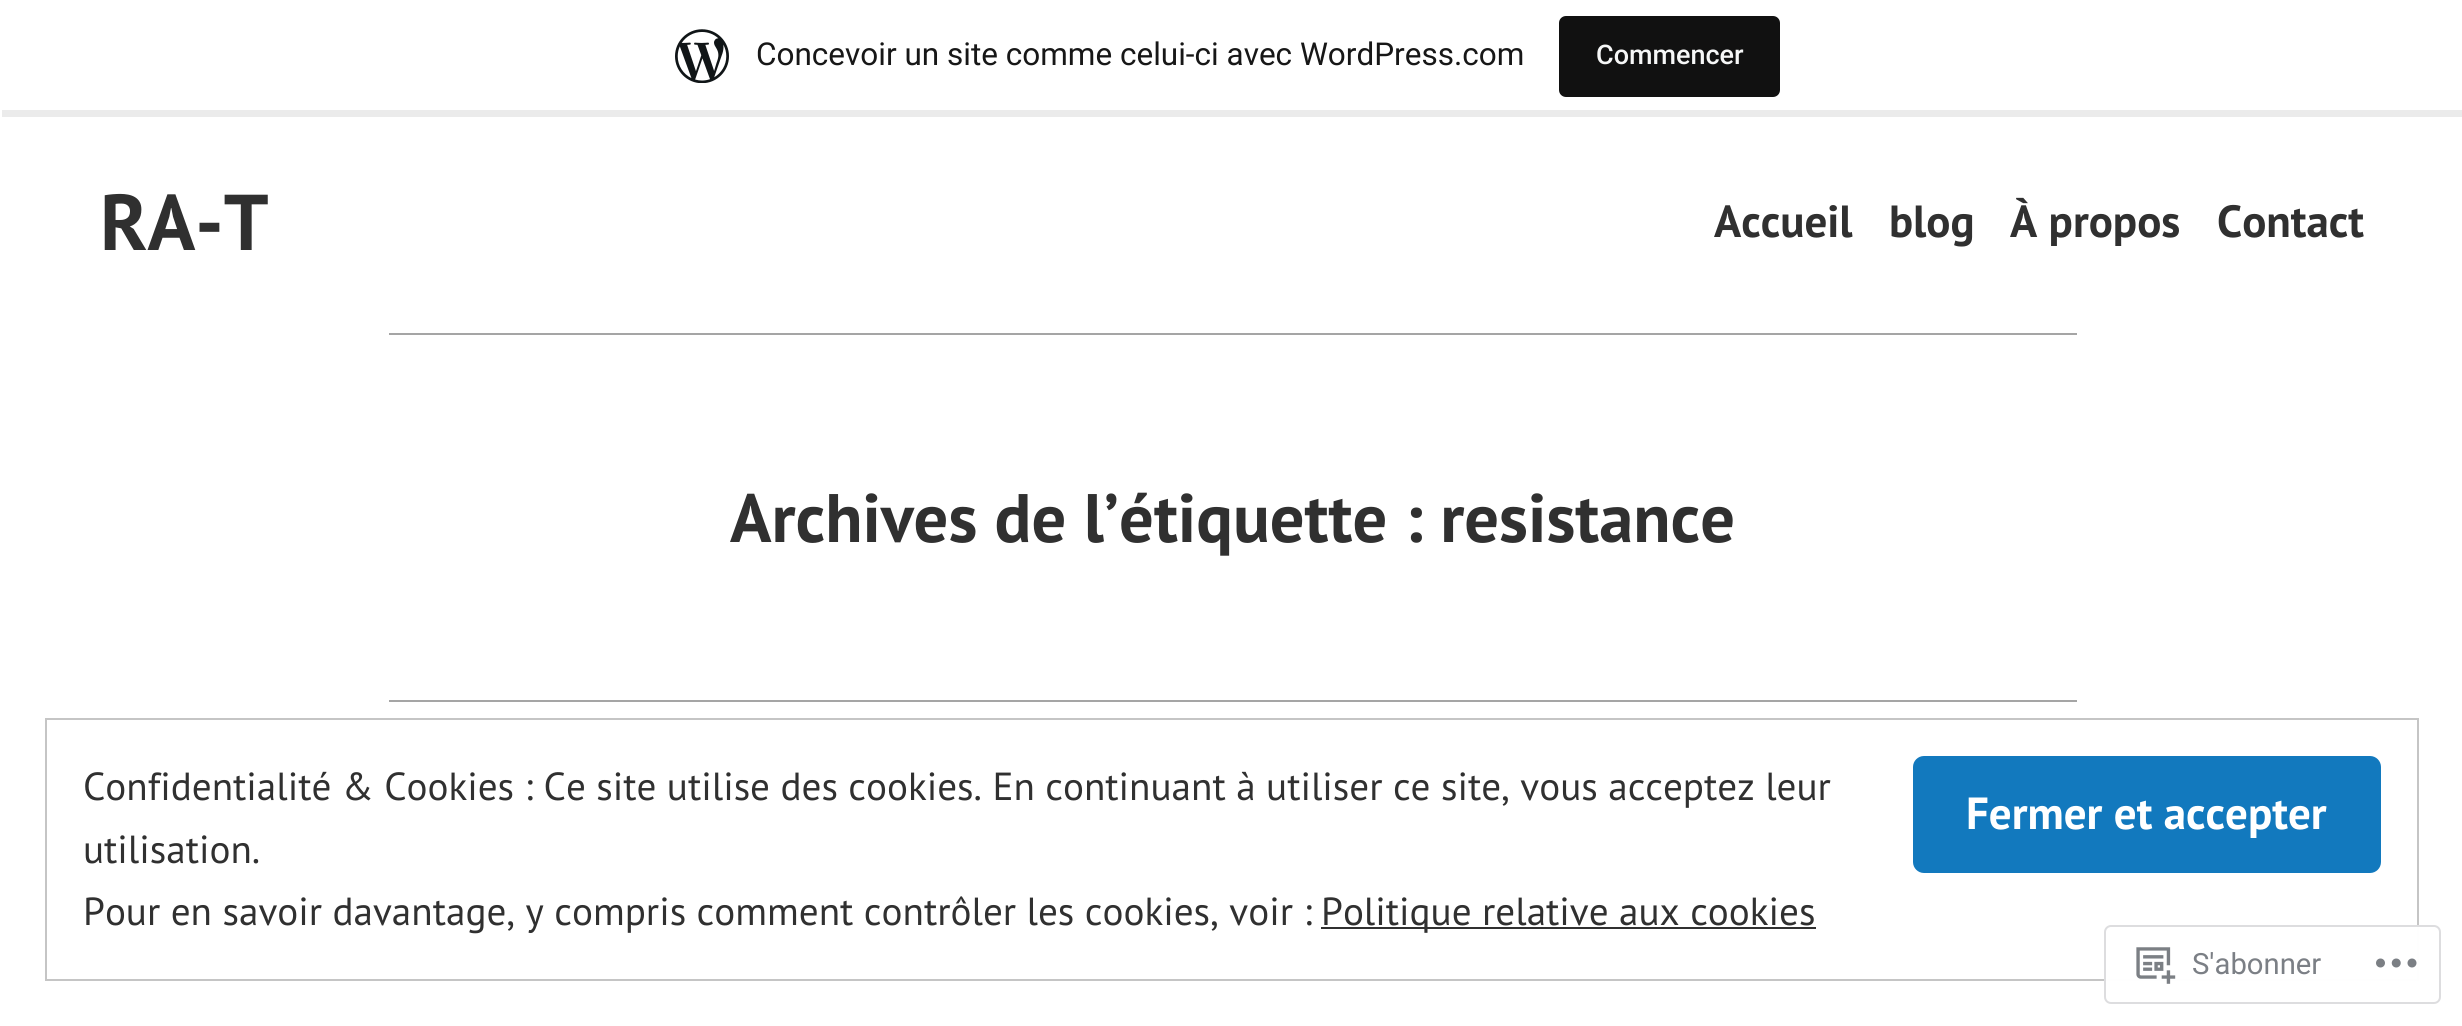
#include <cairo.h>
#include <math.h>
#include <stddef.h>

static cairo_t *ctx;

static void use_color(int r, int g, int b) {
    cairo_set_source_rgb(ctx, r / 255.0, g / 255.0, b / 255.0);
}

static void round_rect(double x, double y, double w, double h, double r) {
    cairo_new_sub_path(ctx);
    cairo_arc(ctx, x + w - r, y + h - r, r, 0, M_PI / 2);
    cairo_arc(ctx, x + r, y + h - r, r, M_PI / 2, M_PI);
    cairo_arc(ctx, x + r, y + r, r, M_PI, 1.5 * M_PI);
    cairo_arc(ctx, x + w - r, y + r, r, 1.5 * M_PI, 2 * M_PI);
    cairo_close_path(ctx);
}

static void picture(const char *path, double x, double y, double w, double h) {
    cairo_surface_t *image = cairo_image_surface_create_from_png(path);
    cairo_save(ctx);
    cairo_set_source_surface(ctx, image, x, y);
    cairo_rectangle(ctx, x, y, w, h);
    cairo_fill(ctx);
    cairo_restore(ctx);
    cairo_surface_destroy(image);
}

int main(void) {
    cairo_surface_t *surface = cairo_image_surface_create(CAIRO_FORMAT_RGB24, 2462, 1026);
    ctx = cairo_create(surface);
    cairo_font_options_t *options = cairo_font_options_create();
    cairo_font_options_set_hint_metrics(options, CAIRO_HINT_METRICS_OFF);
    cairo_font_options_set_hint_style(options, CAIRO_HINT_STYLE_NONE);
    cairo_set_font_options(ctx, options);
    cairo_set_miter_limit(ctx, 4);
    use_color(255, 255, 255);
    cairo_paint(ctx);
    cairo_set_source_rgba(ctx, 0, 0, 0, 0.08);
    cairo_new_path(ctx);
    cairo_move_to(ctx, 2, 110);
    cairo_line_to(ctx, 2, 117);
    cairo_line_to(ctx, 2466, 117);
    cairo_line_to(ctx, 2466, 7);
    cairo_line_to(ctx, 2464, 7);
    cairo_line_to(ctx, 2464, 110);
    cairo_close_path(ctx);
    cairo_fill(ctx);
    picture("img1.png", 675, 29, 54, 54);
    cairo_select_font_face(ctx, "Roboto", CAIRO_FONT_SLANT_NORMAL, CAIRO_FONT_WEIGHT_NORMAL);
    cairo_set_font_size(ctx, 31.5);
    use_color(23, 23, 23);
    cairo_move_to(ctx, 756, 65);
    cairo_show_text(ctx, "Concevoir un site comme celui-ci avec WordPress.com");
    use_color(17, 17, 17);
    round_rect(1559, 16, 221, 81, 7);
    cairo_fill(ctx);
    cairo_select_font_face(ctx, "Roboto Medium", CAIRO_FONT_SLANT_NORMAL, CAIRO_FONT_WEIGHT_NORMAL);
    cairo_set_font_size(ctx, 27);
    use_color(246, 247, 247);
    cairo_move_to(ctx, 1596, 64);
    cairo_show_text(ctx, "Commencer");
    cairo_select_font_face(ctx, "PT Sans", CAIRO_FONT_SLANT_NORMAL, CAIRO_FONT_WEIGHT_BOLD);
    cairo_set_font_size(ctx, 79);
    use_color(48, 48, 48);
    cairo_move_to(ctx, 100, 250);
    cairo_show_text(ctx, "RA-T");
    cairo_set_font_size(ctx, 45);
    cairo_move_to(ctx, 1714, 237);
    cairo_show_text(ctx, "Accueil");
    cairo_move_to(ctx, 1889, 237);
    cairo_show_text(ctx, "blog");
    cairo_move_to(ctx, 2010, 237);
    cairo_show_text(ctx, "À propos");
    cairo_move_to(ctx, 2217, 237);
    cairo_show_text(ctx, "Contact");
    use_color(165, 165, 165);
    cairo_rectangle(ctx, 389, 333, 1688, 2);
    cairo_fill(ctx);
    cairo_set_font_size(ctx, 68.5);
    use_color(48, 48, 48);
    cairo_move_to(ctx, 730, 542);
    cairo_show_text(ctx, "Archives de l’étiquette : resistance");
    use_color(165, 165, 165);
    cairo_rectangle(ctx, 389, 700, 1688, 2);
    cairo_fill(ctx);
    cairo_rectangle(ctx, 46, 719, 2372, 261);
    use_color(197, 197, 197);
    cairo_stroke(ctx);
    cairo_select_font_face(ctx, "PT Sans", CAIRO_FONT_SLANT_NORMAL, CAIRO_FONT_WEIGHT_NORMAL);
    cairo_set_font_size(ctx, 39.15);
    use_color(48, 48, 48);
    cairo_move_to(ctx, 83, 800);
    cairo_show_text(ctx, "Confidentialité & Cookies : Ce site utilise des cookies. En continuant à utiliser ce site, vous acceptez leur");
    use_color(18, 121, 190);
    round_rect(1913, 756, 468, 117, 11);
    cairo_fill(ctx);
    cairo_select_font_face(ctx, "PT Sans", CAIRO_FONT_SLANT_NORMAL, CAIRO_FONT_WEIGHT_BOLD);
    cairo_set_font_size(ctx, 45);
    use_color(255, 255, 255);
    cairo_move_to(ctx, 1966, 829);
    cairo_show_text(ctx, "Fermer et accepter");
    cairo_select_font_face(ctx, "PT Sans", CAIRO_FONT_SLANT_NORMAL, CAIRO_FONT_WEIGHT_NORMAL);
    cairo_set_font_size(ctx, 39.15);
    use_color(48, 48, 48);
    cairo_move_to(ctx, 83, 863);
    cairo_show_text(ctx, "utilisation.");
    cairo_move_to(ctx, 83, 925);
    cairo_show_text(ctx, "Pour en savoir davantage, y compris comment contrôler les cookies, voir :");
    cairo_rectangle(ctx, 1321, 927, 495, 2);
    cairo_fill(ctx);
    cairo_move_to(ctx, 1321, 925);
    cairo_show_text(ctx, "Politique relative aux cookies");
    cairo_set_source_rgba(ctx, 1, 1, 1, 0.98);
    round_rect(2105, 926, 335, 77, 6);
    cairo_fill_preserve(ctx);
    use_color(221, 221, 223);
    cairo_stroke(ctx);
    picture("img2.png", 2136, 947, 40, 37);
    cairo_select_font_face(ctx, "Roboto", CAIRO_FONT_SLANT_NORMAL, CAIRO_FONT_WEIGHT_NORMAL);
    cairo_set_font_size(ctx, 29.25);
    use_color(123, 127, 133);
    cairo_move_to(ctx, 2192, 974);
    cairo_show_text(ctx, "S'abonner");
    picture("img3.png", 2376, 958, 41, 10);
    cairo_surface_write_to_png(surface, "result.png");
    cairo_font_options_destroy(options);
    cairo_destroy(ctx);
    cairo_surface_destroy(surface);
    return 0;
}
